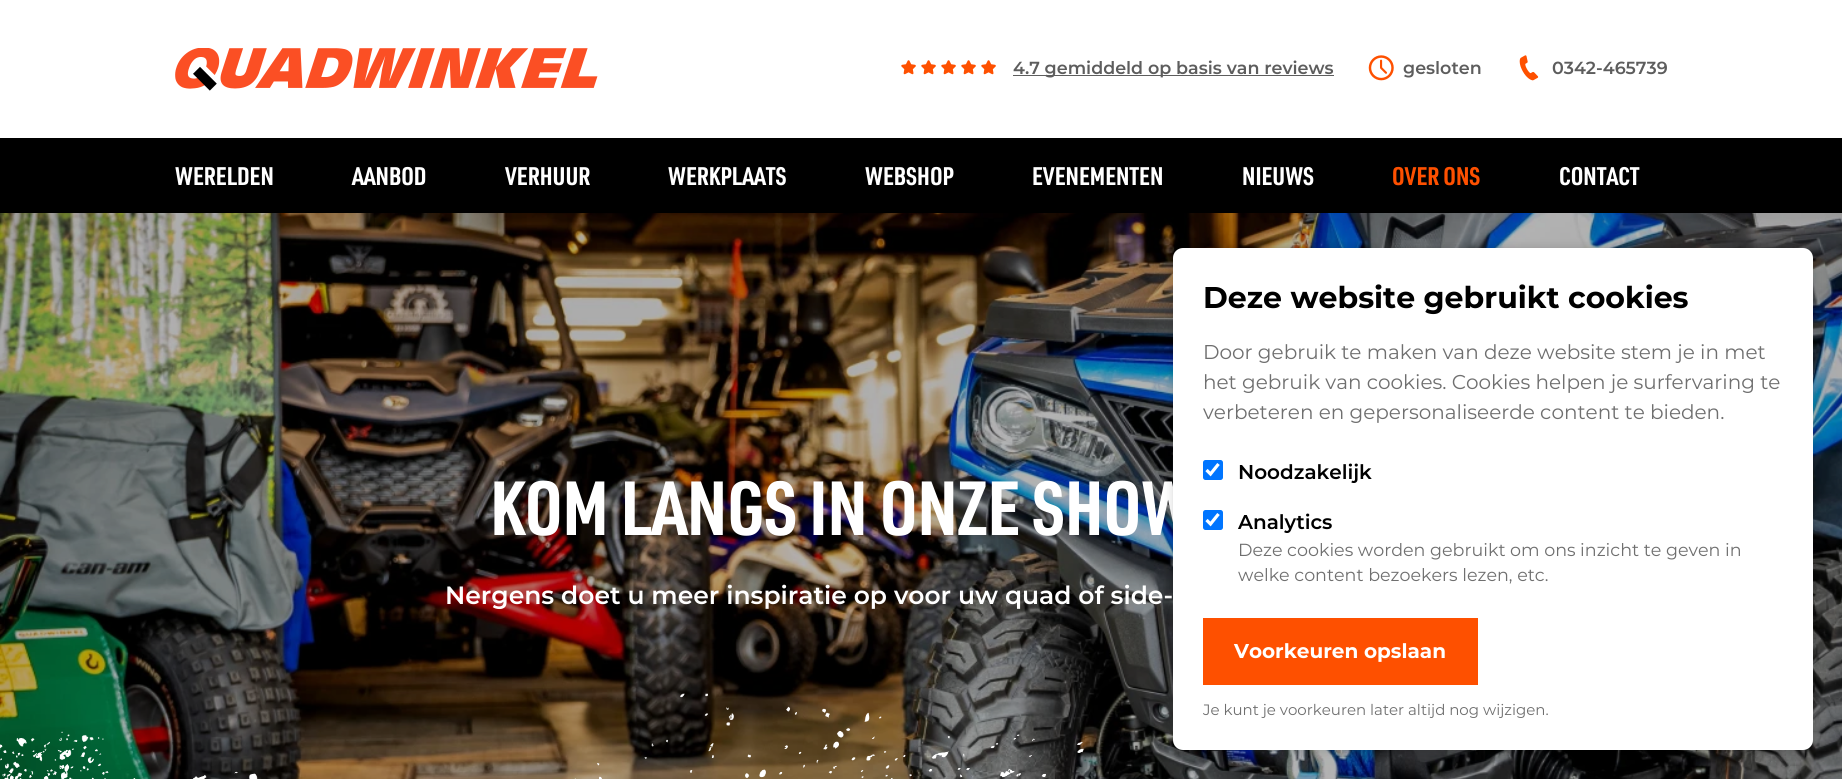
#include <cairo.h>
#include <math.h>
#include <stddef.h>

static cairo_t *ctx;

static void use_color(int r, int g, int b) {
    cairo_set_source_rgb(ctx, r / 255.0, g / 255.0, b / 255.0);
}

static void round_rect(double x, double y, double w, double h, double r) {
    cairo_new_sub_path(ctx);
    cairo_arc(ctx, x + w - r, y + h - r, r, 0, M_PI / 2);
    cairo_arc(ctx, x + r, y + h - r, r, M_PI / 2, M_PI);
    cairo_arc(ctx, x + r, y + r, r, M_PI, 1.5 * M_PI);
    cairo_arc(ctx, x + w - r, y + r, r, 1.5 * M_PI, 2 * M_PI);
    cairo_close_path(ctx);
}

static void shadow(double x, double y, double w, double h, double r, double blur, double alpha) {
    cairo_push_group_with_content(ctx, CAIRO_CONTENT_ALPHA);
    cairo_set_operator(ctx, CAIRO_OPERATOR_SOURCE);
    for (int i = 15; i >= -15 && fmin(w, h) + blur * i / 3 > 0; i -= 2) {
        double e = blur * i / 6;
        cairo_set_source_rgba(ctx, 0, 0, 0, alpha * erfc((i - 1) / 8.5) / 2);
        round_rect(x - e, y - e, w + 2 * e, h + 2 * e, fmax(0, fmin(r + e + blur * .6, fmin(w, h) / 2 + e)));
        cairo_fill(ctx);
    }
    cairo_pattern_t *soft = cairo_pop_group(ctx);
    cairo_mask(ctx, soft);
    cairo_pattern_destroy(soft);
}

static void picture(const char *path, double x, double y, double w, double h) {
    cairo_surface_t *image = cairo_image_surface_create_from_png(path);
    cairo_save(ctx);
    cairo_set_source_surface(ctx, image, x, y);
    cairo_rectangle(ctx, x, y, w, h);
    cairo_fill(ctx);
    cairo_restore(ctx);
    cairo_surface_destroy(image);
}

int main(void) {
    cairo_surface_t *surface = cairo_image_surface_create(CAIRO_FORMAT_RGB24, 1842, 779);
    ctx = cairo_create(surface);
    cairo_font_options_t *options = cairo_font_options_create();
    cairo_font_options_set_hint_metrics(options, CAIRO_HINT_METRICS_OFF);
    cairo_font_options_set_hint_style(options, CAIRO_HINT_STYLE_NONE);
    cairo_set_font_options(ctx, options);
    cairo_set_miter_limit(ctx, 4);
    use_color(255, 255, 255);
    cairo_paint(ctx);
    picture("img1.png", 175, 48, 423, 43);
    use_color(0, 0, 0);
    cairo_rectangle(ctx, 0, 138, 1842, 75);
    cairo_fill(ctx);
    picture("img2.png", 901, 60, 15, 15);
    picture("img2.png", 921, 60, 15, 15);
    picture("img2.png", 941, 60, 15, 15);
    picture("img2.png", 961, 60, 15, 15);
    picture("img2.png", 981, 60, 15, 15);
    use_color(93, 93, 93);
    cairo_rectangle(ctx, 1013, 75, 321, 1);
    cairo_fill(ctx);
    cairo_select_font_face(ctx, "Montserrat SemiBold", CAIRO_FONT_SLANT_NORMAL, CAIRO_FONT_WEIGHT_NORMAL);
    cairo_set_font_size(ctx, 17.5);
    cairo_move_to(ctx, 1013, 74);
    cairo_show_text(ctx, "4.7 gemiddeld op basis van reviews");
    picture("img3.png", 1368, 55, 26, 26);
    cairo_move_to(ctx, 1403, 74);
    cairo_show_text(ctx, "gesloten");
    picture("img4.png", 1519, 55, 20, 26);
    cairo_move_to(ctx, 1552, 74);
    cairo_show_text(ctx, "0342-465739");
    cairo_select_font_face(ctx, "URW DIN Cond", CAIRO_FONT_SLANT_NORMAL, CAIRO_FONT_WEIGHT_BOLD);
    cairo_set_font_size(ctx, 25);
    use_color(255, 255, 255);
    cairo_move_to(ctx, 175, 185);
    cairo_show_text(ctx, "WERELDEN");
    cairo_move_to(ctx, 352, 185);
    cairo_show_text(ctx, "AANBOD");
    cairo_move_to(ctx, 505, 185);
    cairo_show_text(ctx, "VERHUUR");
    cairo_move_to(ctx, 668, 185);
    cairo_show_text(ctx, "WERKPLAATS");
    cairo_move_to(ctx, 865, 185);
    cairo_show_text(ctx, "WEBSHOP");
    cairo_move_to(ctx, 1032, 185);
    cairo_show_text(ctx, "EVENEMENTEN");
    cairo_move_to(ctx, 1242, 185);
    cairo_show_text(ctx, "NIEUWS");
    use_color(254, 80, 0);
    cairo_move_to(ctx, 1392, 185);
    cairo_show_text(ctx, "OVER ONS");
    use_color(255, 255, 255);
    cairo_move_to(ctx, 1559, 185);
    cairo_show_text(ctx, "CONTACT");
    picture("img5.png", 0, 213, 1842, 566);
    picture("img6.png", 0, 693, 1798, 86);
    cairo_set_font_size(ctx, 75);
    cairo_move_to(ctx, 490, 535);
    cairo_show_text(ctx, "KOM LANGS IN ONZE SHOW");
    cairo_select_font_face(ctx, "Montserrat SemiBold", CAIRO_FONT_SLANT_NORMAL, CAIRO_FONT_WEIGHT_NORMAL);
    cairo_set_font_size(ctx, 25);
    cairo_move_to(ctx, 445, 604);
    cairo_show_text(ctx, "Nergens doet u meer inspiratie op voor uw quad of side-");
    use_color(0, 0, 0);
    shadow(1173, 248, 640, 502, 10, 5, 0.16);
    use_color(255, 255, 255);
    round_rect(1173, 248, 640, 502, 10);
    cairo_fill(ctx);
    cairo_select_font_face(ctx, "Montserrat", CAIRO_FONT_SLANT_NORMAL, CAIRO_FONT_WEIGHT_BOLD);
    cairo_set_font_size(ctx, 30);
    use_color(0, 0, 0);
    cairo_move_to(ctx, 1203, 308);
    cairo_show_text(ctx, "Deze website gebruikt cookies");
    cairo_select_font_face(ctx, "Montserrat", CAIRO_FONT_SLANT_NORMAL, CAIRO_FONT_WEIGHT_NORMAL);
    cairo_set_font_size(ctx, 20);
    use_color(111, 111, 111);
    cairo_move_to(ctx, 1203, 359);
    cairo_show_text(ctx, "Door gebruik te maken van deze website stem je in met");
    cairo_move_to(ctx, 1203, 389);
    cairo_show_text(ctx, "het gebruik van cookies. Cookies helpen je surfervaring te");
    cairo_move_to(ctx, 1203, 419);
    cairo_show_text(ctx, "verbeteren en gepersonaliseerde content te bieden.");
    use_color(0, 117, 255);
    round_rect(1203, 460, 20, 20, 2.5);
    cairo_fill(ctx);
    cairo_new_path(ctx);
    cairo_move_to(ctx, 1206.5, 470);
    cairo_line_to(ctx, 1210.5, 474);
    cairo_line_to(ctx, 1218.5, 464);
    use_color(255, 255, 255);
    cairo_set_line_width(ctx, 3.2);
    cairo_stroke(ctx);
    cairo_select_font_face(ctx, "Montserrat SemiBold", CAIRO_FONT_SLANT_NORMAL, CAIRO_FONT_WEIGHT_NORMAL);
    use_color(0, 0, 0);
    cairo_move_to(ctx, 1238, 479);
    cairo_show_text(ctx, "Noodzakelijk");
    use_color(0, 117, 255);
    round_rect(1203, 510, 20, 20, 2.5);
    cairo_fill(ctx);
    cairo_new_path(ctx);
    cairo_move_to(ctx, 1206.5, 520);
    cairo_line_to(ctx, 1210.5, 524);
    cairo_line_to(ctx, 1218.5, 514);
    use_color(255, 255, 255);
    cairo_stroke(ctx);
    use_color(0, 0, 0);
    cairo_move_to(ctx, 1238, 529);
    cairo_show_text(ctx, "Analytics");
    cairo_select_font_face(ctx, "Montserrat", CAIRO_FONT_SLANT_NORMAL, CAIRO_FONT_WEIGHT_NORMAL);
    cairo_set_font_size(ctx, 17.5);
    use_color(111, 111, 111);
    cairo_move_to(ctx, 1238, 556);
    cairo_show_text(ctx, "Deze cookies worden gebruikt om ons inzicht te geven in");
    cairo_move_to(ctx, 1238, 581);
    cairo_show_text(ctx, "welke content bezoekers lezen, etc.");
    use_color(254, 80, 0);
    cairo_rectangle(ctx, 1203, 618, 275, 67);
    cairo_fill(ctx);
    cairo_select_font_face(ctx, "Montserrat", CAIRO_FONT_SLANT_NORMAL, CAIRO_FONT_WEIGHT_BOLD);
    cairo_set_font_size(ctx, 20);
    use_color(255, 255, 255);
    cairo_move_to(ctx, 1234, 658);
    cairo_show_text(ctx, "Voorkeuren opslaan");
    cairo_select_font_face(ctx, "Montserrat", CAIRO_FONT_SLANT_NORMAL, CAIRO_FONT_WEIGHT_NORMAL);
    cairo_set_font_size(ctx, 15);
    use_color(111, 111, 111);
    cairo_move_to(ctx, 1203, 715);
    cairo_show_text(ctx, "Je kunt je voorkeuren later altijd nog wijzigen.");
    cairo_surface_write_to_png(surface, "result.png");
    cairo_font_options_destroy(options);
    cairo_destroy(ctx);
    cairo_surface_destroy(surface);
    return 0;
}
